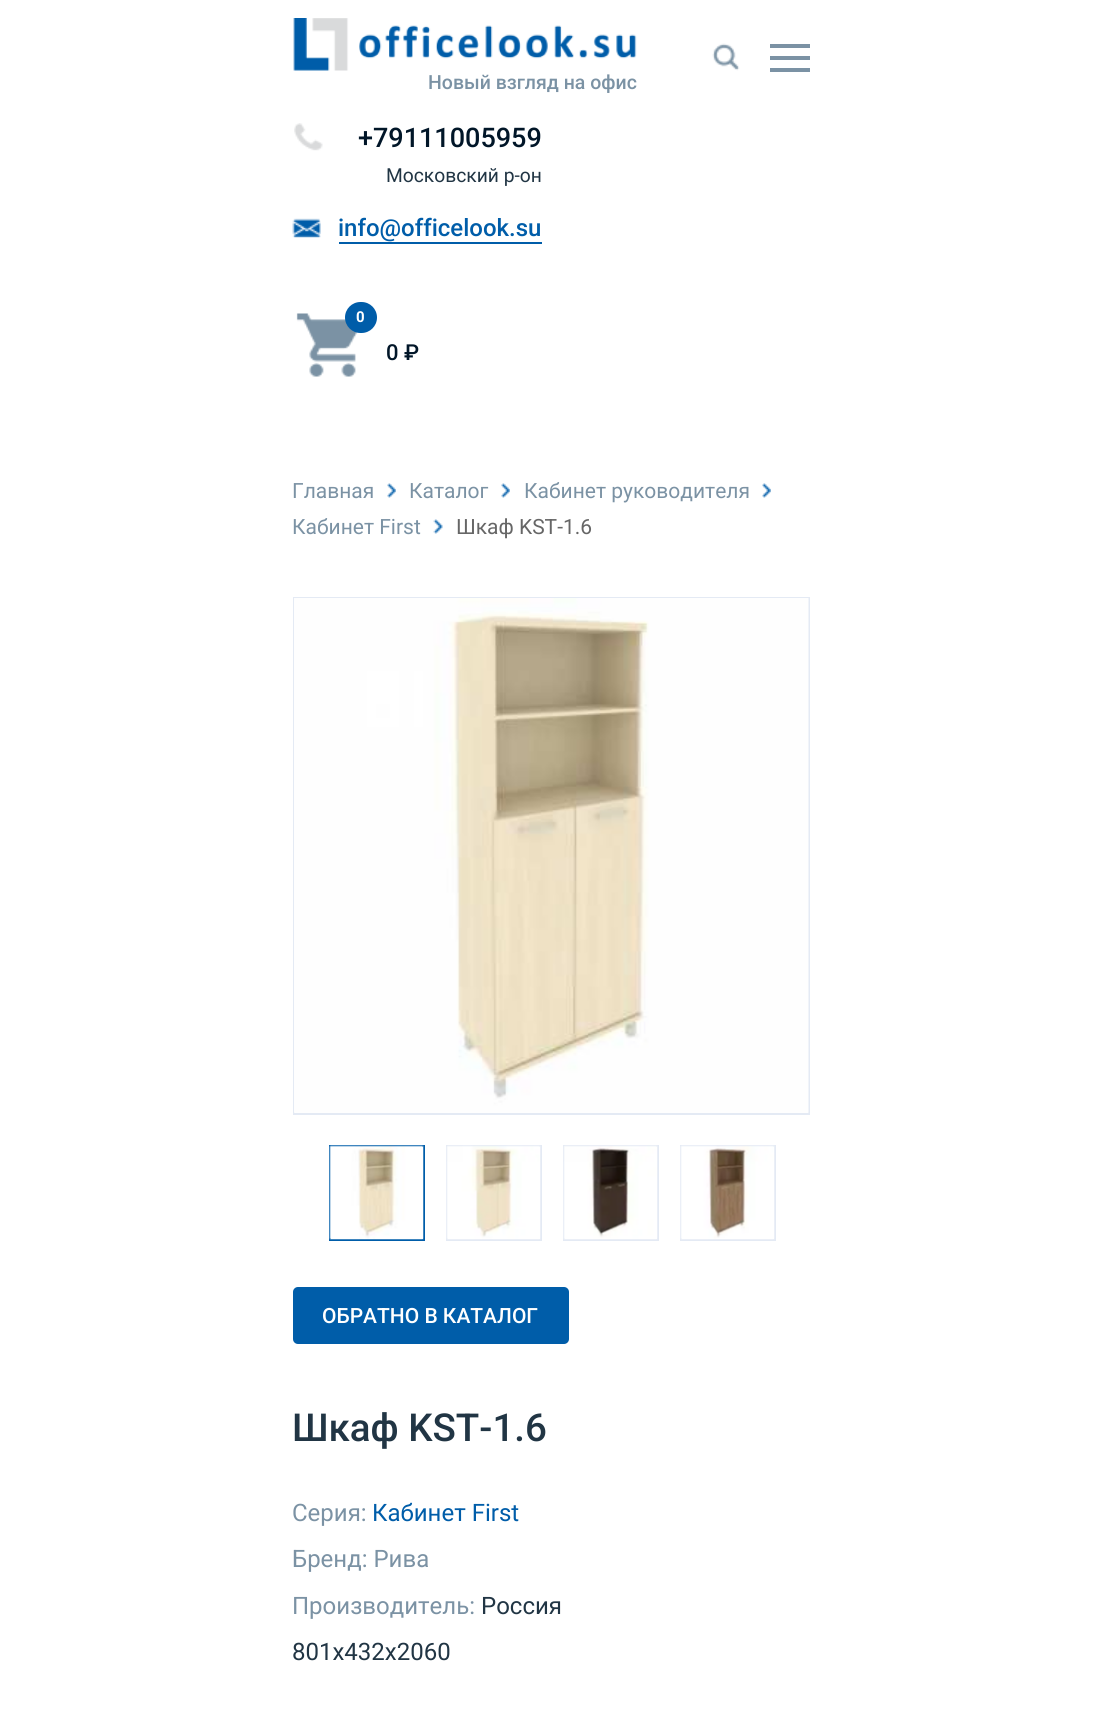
#include <cairo.h>
#include <math.h>
#include <stddef.h>

static cairo_t *ctx;

static void use_color(int r, int g, int b) {
    cairo_set_source_rgb(ctx, r / 255.0, g / 255.0, b / 255.0);
}

static void round_rect(double x, double y, double w, double h, double r) {
    cairo_new_sub_path(ctx);
    cairo_arc(ctx, x + w - r, y + h - r, r, 0, M_PI / 2);
    cairo_arc(ctx, x + r, y + h - r, r, M_PI / 2, M_PI);
    cairo_arc(ctx, x + r, y + r, r, M_PI, 1.5 * M_PI);
    cairo_arc(ctx, x + w - r, y + r, r, 1.5 * M_PI, 2 * M_PI);
    cairo_close_path(ctx);
}

static void picture(const char *path, double x, double y, double w, double h) {
    cairo_surface_t *image = cairo_image_surface_create_from_png(path);
    cairo_save(ctx);
    cairo_set_source_surface(ctx, image, x, y);
    cairo_rectangle(ctx, x, y, w, h);
    cairo_fill(ctx);
    cairo_restore(ctx);
    cairo_surface_destroy(image);
}

int main(void) {
    cairo_surface_t *surface = cairo_image_surface_create(CAIRO_FORMAT_RGB24, 1100, 1717);
    ctx = cairo_create(surface);
    cairo_font_options_t *options = cairo_font_options_create();
    cairo_font_options_set_hint_metrics(options, CAIRO_HINT_METRICS_OFF);
    cairo_font_options_set_hint_style(options, CAIRO_HINT_STYLE_NONE);
    cairo_set_font_options(ctx, options);
    cairo_set_miter_limit(ctx, 4);
    use_color(255, 255, 255);
    cairo_paint(ctx);
    picture("img1.png", 712, 43, 28, 28);
    use_color(123, 146, 164);
    cairo_rectangle(ctx, 770, 44, 40, 4);
    cairo_fill(ctx);
    cairo_rectangle(ctx, 770, 56, 40, 4);
    cairo_fill(ctx);
    cairo_rectangle(ctx, 770, 68, 40, 4);
    cairo_fill(ctx);
    picture("img2.png", 293, 18, 344, 53);
    cairo_select_font_face(ctx, "Roboto Medium", CAIRO_FONT_SLANT_NORMAL, CAIRO_FONT_WEIGHT_NORMAL);
    cairo_set_font_size(ctx, 19.5);
    cairo_move_to(ctx, 428, 89);
    cairo_show_text(ctx, "Новый взгляд на офис");
    picture("img3.png", 294, 123, 29, 28);
    cairo_set_font_size(ctx, 27);
    use_color(1, 22, 40);
    cairo_move_to(ctx, 358, 147);
    cairo_show_text(ctx, "+79111005959");
    cairo_select_font_face(ctx, "Roboto", CAIRO_FONT_SLANT_NORMAL, CAIRO_FONT_WEIGHT_NORMAL);
    cairo_set_font_size(ctx, 19.25);
    use_color(33, 53, 68);
    cairo_move_to(ctx, 386, 182);
    cairo_show_text(ctx, "Московский р-он");
    picture("img4.png", 292, 218, 29, 20);
    cairo_select_font_face(ctx, "Roboto Medium", CAIRO_FONT_SLANT_NORMAL, CAIRO_FONT_WEIGHT_NORMAL);
    cairo_set_font_size(ctx, 24);
    use_color(0, 93, 169);
    cairo_move_to(ctx, 338, 236);
    cairo_show_text(ctx, "info@officelook.su");
    cairo_rectangle(ctx, 339, 242, 203, 2);
    cairo_fill(ctx);
    picture("img5.png", 296, 313, 62, 64);
    round_rect(345, 302, 32, 31, 15.5);
    cairo_fill(ctx);
    cairo_select_font_face(ctx, "Roboto", CAIRO_FONT_SLANT_NORMAL, CAIRO_FONT_WEIGHT_BOLD);
    cairo_set_font_size(ctx, 15);
    use_color(255, 255, 255);
    cairo_move_to(ctx, 356, 322);
    cairo_show_text(ctx, "0");
    cairo_select_font_face(ctx, "Roboto Medium", CAIRO_FONT_SLANT_NORMAL, CAIRO_FONT_WEIGHT_NORMAL);
    cairo_set_font_size(ctx, 22);
    use_color(1, 22, 40);
    cairo_move_to(ctx, 386, 360);
    cairo_show_text(ctx, "0 ₽");
    cairo_select_font_face(ctx, "Roboto", CAIRO_FONT_SLANT_NORMAL, CAIRO_FONT_WEIGHT_NORMAL);
    cairo_set_font_size(ctx, 21);
    use_color(123, 146, 164);
    cairo_move_to(ctx, 292, 498);
    cairo_show_text(ctx, "Главная");
    picture("img6.png", 387, 483, 9, 15);
    cairo_move_to(ctx, 409, 498);
    cairo_show_text(ctx, "Каталог");
    picture("img6.png", 501, 483, 9, 15);
    cairo_move_to(ctx, 524, 498);
    cairo_show_text(ctx, "Кабинет руководителя");
    picture("img7.png", 762, 483, 9, 15);
    cairo_move_to(ctx, 292, 534);
    cairo_show_text(ctx, "Кабинет First");
    picture("img8.png", 433, 519, 10, 15);
    use_color(102, 102, 102);
    cairo_move_to(ctx, 456, 534);
    cairo_show_text(ctx, "Шкаф KST-1.6");
    cairo_rectangle(ctx, 294, 598, 515, 516);
    use_color(228, 234, 244);
    cairo_stroke(ctx);
    picture("img9.png", 294, 598, 515, 515);
    cairo_rectangle(ctx, 330, 1146, 94, 94);
    use_color(0, 93, 169);
    cairo_stroke(ctx);
    picture("img10.png", 329, 1145, 95, 95);
    cairo_rectangle(ctx, 447, 1146, 94, 94);
    use_color(228, 234, 244);
    cairo_stroke(ctx);
    picture("img11.png", 446, 1145, 95, 95);
    cairo_rectangle(ctx, 564, 1146, 94, 94);
    cairo_stroke(ctx);
    picture("img12.png", 563, 1145, 95, 95);
    cairo_rectangle(ctx, 681, 1146, 94, 94);
    cairo_stroke(ctx);
    picture("img13.png", 680, 1145, 95, 95);
    use_color(0, 93, 169);
    round_rect(293, 1287, 276, 57, 5);
    cairo_fill(ctx);
    cairo_select_font_face(ctx, "Roboto Medium", CAIRO_FONT_SLANT_NORMAL, CAIRO_FONT_WEIGHT_NORMAL);
    use_color(255, 255, 255);
    cairo_move_to(ctx, 322, 1323);
    cairo_show_text(ctx, "ОБРАТНО В КАТАЛОГ");
    cairo_set_font_size(ctx, 38.5);
    use_color(33, 53, 68);
    cairo_move_to(ctx, 292, 1441);
    cairo_show_text(ctx, "Шкаф KST-1.6");
    cairo_select_font_face(ctx, "Roboto", CAIRO_FONT_SLANT_NORMAL, CAIRO_FONT_WEIGHT_NORMAL);
    cairo_set_font_size(ctx, 24);
    use_color(123, 146, 164);
    cairo_move_to(ctx, 292, 1521);
    cairo_show_text(ctx, "Серия:");
    use_color(0, 93, 169);
    cairo_move_to(ctx, 372, 1521);
    cairo_show_text(ctx, "Кабинет First");
    use_color(123, 146, 164);
    cairo_move_to(ctx, 292, 1567);
    cairo_show_text(ctx, "Бренд: Рива");
    cairo_move_to(ctx, 292, 1614);
    cairo_show_text(ctx, "Производитель:");
    use_color(33, 53, 68);
    cairo_move_to(ctx, 481, 1614);
    cairo_show_text(ctx, "Россия");
    cairo_move_to(ctx, 292, 1660);
    cairo_show_text(ctx, "801х432х2060");
    cairo_surface_write_to_png(surface, "result.png");
    cairo_font_options_destroy(options);
    cairo_destroy(ctx);
    cairo_surface_destroy(surface);
    return 0;
}
